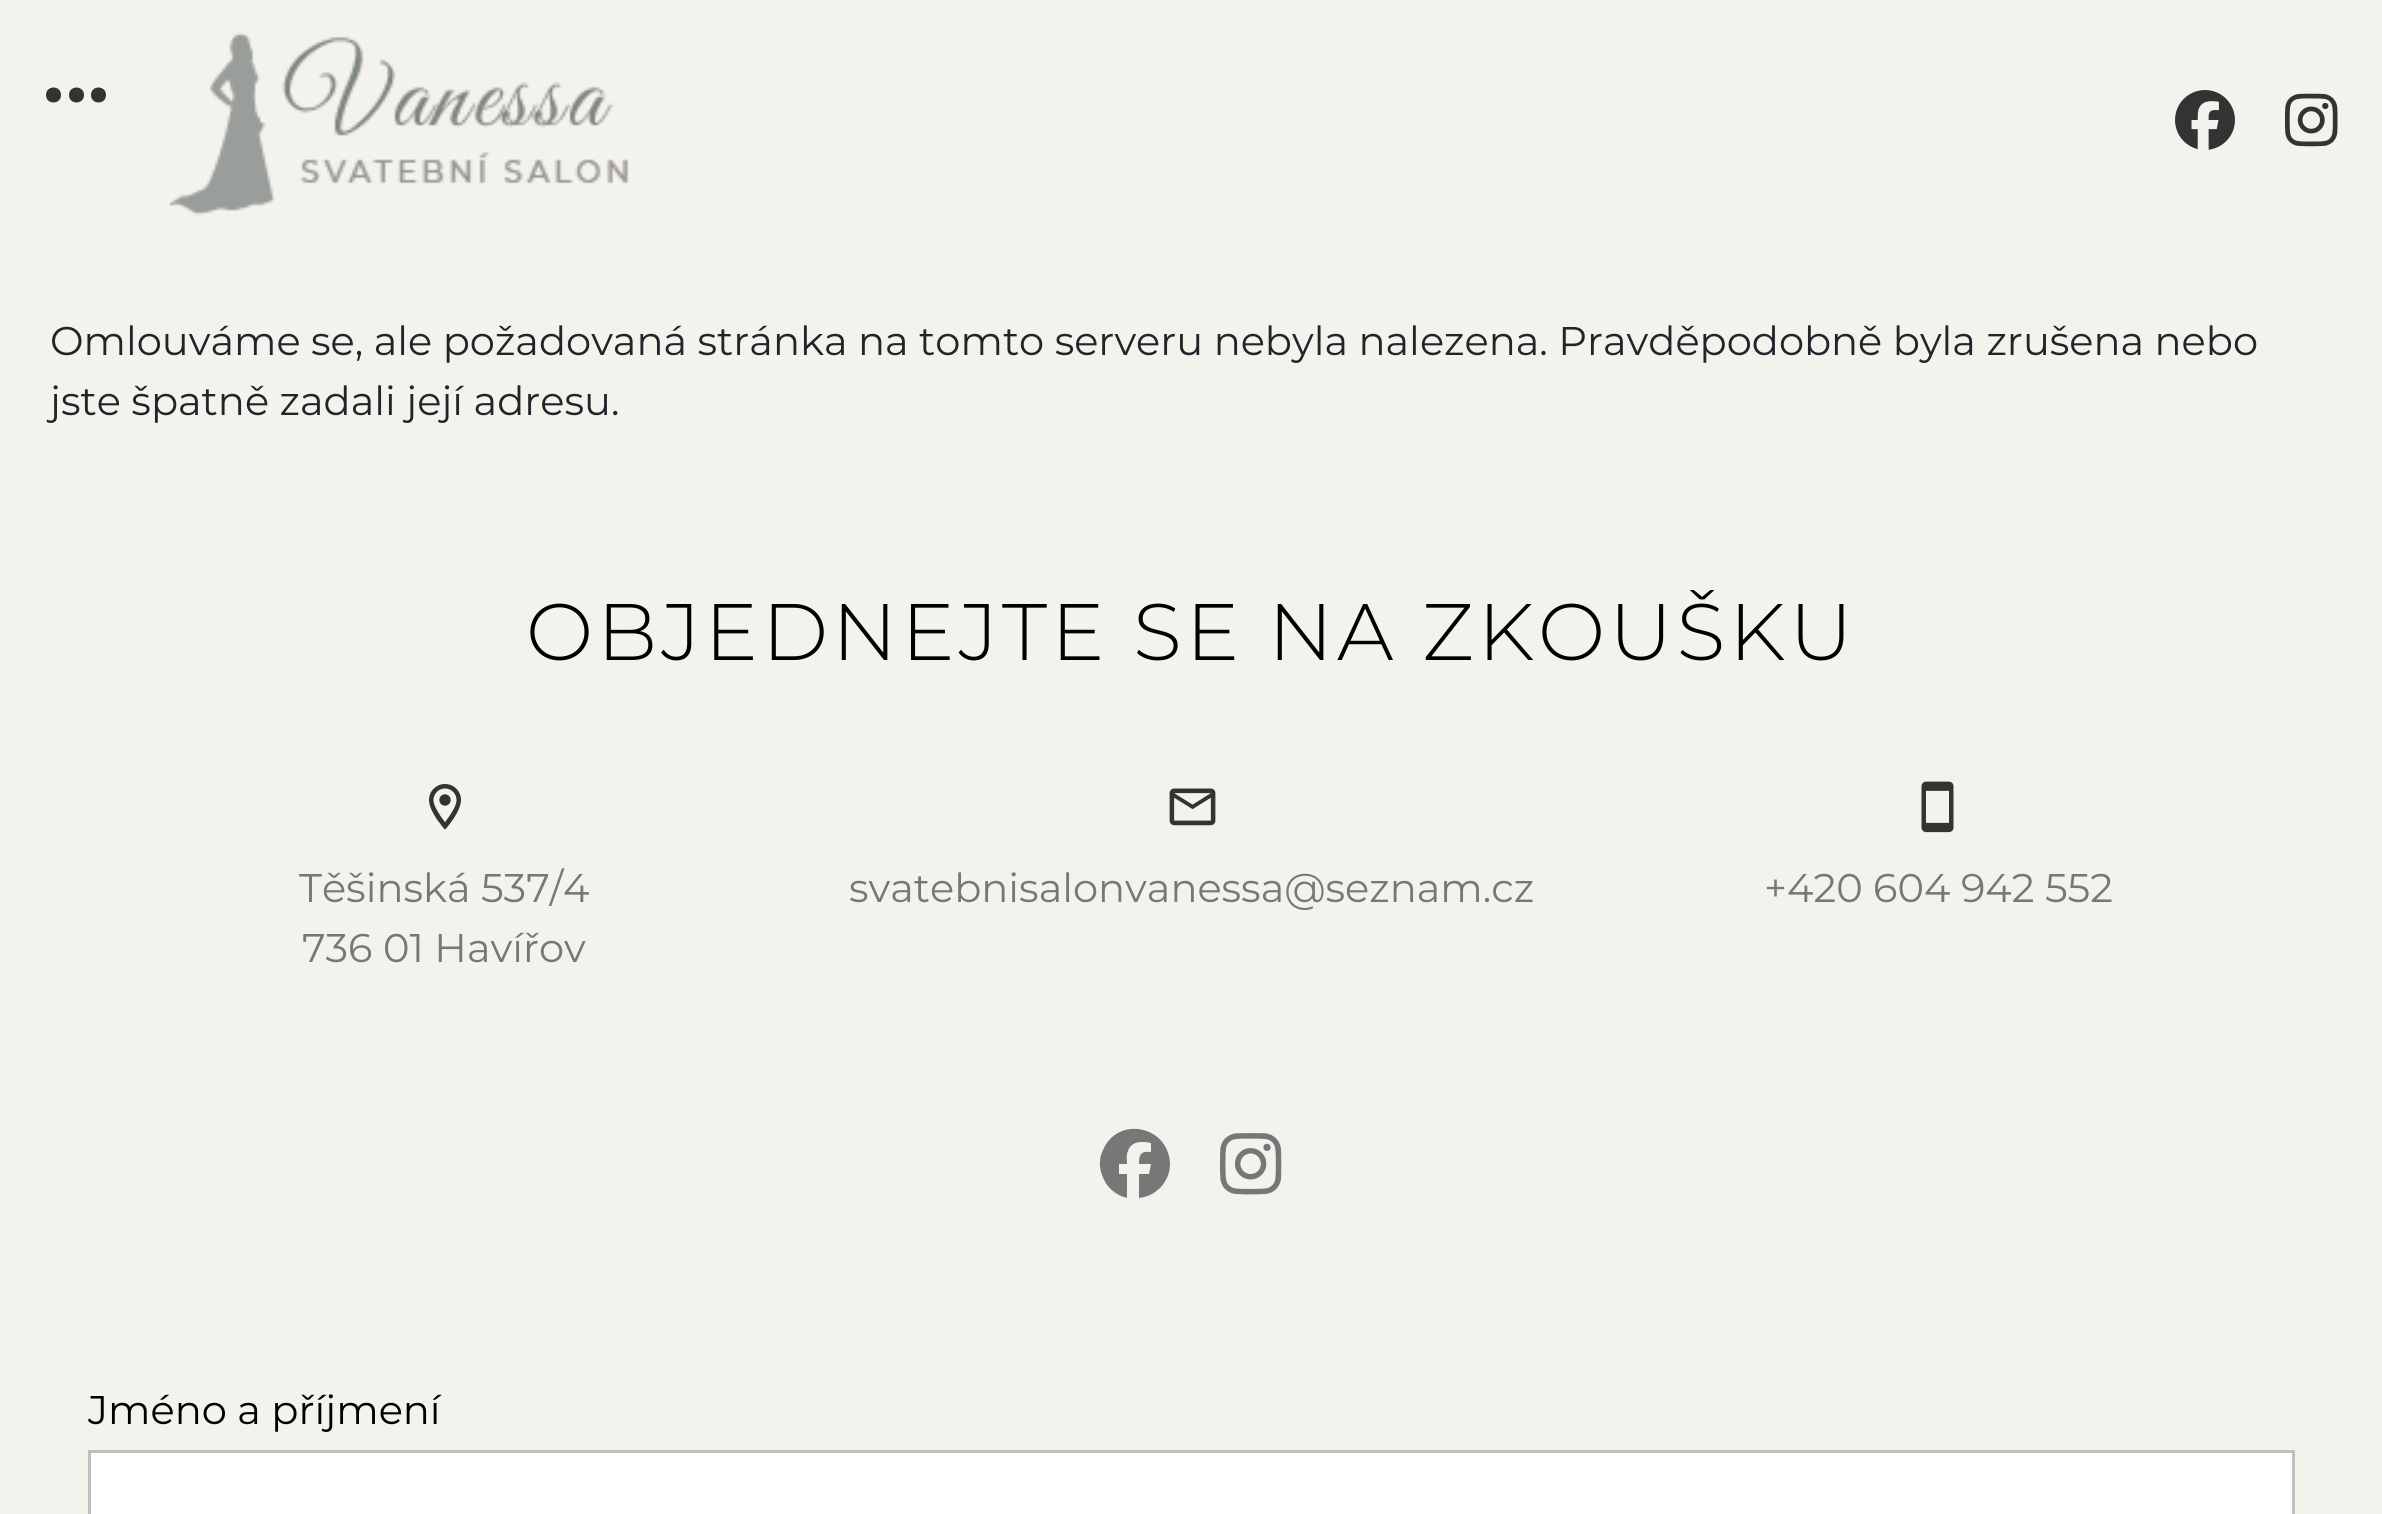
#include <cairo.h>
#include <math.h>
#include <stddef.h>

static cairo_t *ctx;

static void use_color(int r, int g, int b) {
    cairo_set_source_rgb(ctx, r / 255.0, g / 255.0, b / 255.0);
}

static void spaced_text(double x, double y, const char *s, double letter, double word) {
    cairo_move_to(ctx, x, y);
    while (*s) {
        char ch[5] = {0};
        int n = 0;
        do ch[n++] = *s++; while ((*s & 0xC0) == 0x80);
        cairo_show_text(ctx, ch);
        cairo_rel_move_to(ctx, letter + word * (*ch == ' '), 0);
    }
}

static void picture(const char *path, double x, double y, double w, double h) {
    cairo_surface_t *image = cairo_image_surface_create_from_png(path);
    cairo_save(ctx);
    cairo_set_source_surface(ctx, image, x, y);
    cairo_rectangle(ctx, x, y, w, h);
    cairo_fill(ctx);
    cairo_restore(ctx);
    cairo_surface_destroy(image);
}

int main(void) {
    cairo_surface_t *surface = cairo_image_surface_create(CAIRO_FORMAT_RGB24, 2382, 1514);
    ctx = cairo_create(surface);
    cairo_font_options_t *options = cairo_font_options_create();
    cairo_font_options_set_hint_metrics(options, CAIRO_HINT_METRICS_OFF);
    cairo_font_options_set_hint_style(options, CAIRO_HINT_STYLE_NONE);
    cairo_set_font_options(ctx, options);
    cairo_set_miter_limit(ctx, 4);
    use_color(244, 242, 237);
    cairo_paint(ctx);
    use_color(51, 51, 51);
    cairo_new_path(ctx);
    cairo_move_to(ctx, 61, 95);
    cairo_curve_to(ctx, 61, 105, 46, 105, 46, 95);
    cairo_curve_to(ctx, 46, 85, 61, 85, 61, 95);
    cairo_close_path(ctx);
    cairo_move_to(ctx, 84, 95);
    cairo_curve_to(ctx, 84, 105, 69, 105, 69, 95);
    cairo_curve_to(ctx, 69, 85, 84, 85, 84, 95);
    cairo_close_path(ctx);
    cairo_move_to(ctx, 106, 95);
    cairo_curve_to(ctx, 106, 105, 91, 105, 91, 95);
    cairo_curve_to(ctx, 91, 85, 106, 85, 106, 95);
    cairo_close_path(ctx);
    cairo_fill(ctx);
    picture("img1.png", 169, 32, 460, 184);
    picture("img2.png", 2175, 90, 60, 60);
    picture("img3.png", 2285, 93, 53, 54);
    cairo_select_font_face(ctx, "Montserrat", CAIRO_FONT_SLANT_NORMAL, CAIRO_FONT_WEIGHT_NORMAL);
    cairo_set_font_size(ctx, 40);
    use_color(33, 37, 41);
    cairo_move_to(ctx, 50, 355);
    cairo_show_text(ctx, "Omlouváme se, ale požadovaná stránka na tomto serveru nebyla nalezena. Pravděpodobně byla zrušena nebo");
    cairo_move_to(ctx, 50, 415);
    cairo_show_text(ctx, "jste špatně zadali její adresu.");
    cairo_select_font_face(ctx, "Montserrat Light", CAIRO_FONT_SLANT_NORMAL, CAIRO_FONT_WEIGHT_NORMAL);
    cairo_set_font_size(ctx, 80);
    use_color(0, 0, 0);
    spaced_text(526, 660, "OBJEDNEJTE SE NA ZKOUŠKU", 4, 0);
    picture("img4.png", 429, 784, 32, 46);
    cairo_select_font_face(ctx, "Montserrat", CAIRO_FONT_SLANT_NORMAL, CAIRO_FONT_WEIGHT_NORMAL);
    cairo_set_font_size(ctx, 40);
    use_color(118, 119, 119);
    cairo_move_to(ctx, 299, 902);
    cairo_show_text(ctx, "Těšinská 537/4");
    cairo_move_to(ctx, 302, 962);
    cairo_show_text(ctx, "736 01 Havířov");
    picture("img5.png", 1169, 788, 47, 38);
    cairo_move_to(ctx, 849, 902);
    cairo_show_text(ctx, "svatebnisalonvanessa@seznam.cz");
    picture("img6.png", 1921, 781, 33, 52);
    cairo_move_to(ctx, 1764, 902);
    cairo_show_text(ctx, "+420 604 942 552");
    cairo_new_path(ctx);
    cairo_move_to(ctx, 1170, 1164);
    cairo_curve_to(ctx, 1169, 1126, 1118, 1115, 1103, 1150);
    cairo_curve_to(ctx, 1099, 1158, 1099, 1167, 1102, 1175);
    cairo_curve_to(ctx, 1106, 1187, 1115, 1195, 1127, 1198);
    cairo_line_to(ctx, 1127, 1174);
    cairo_line_to(ctx, 1119, 1174);
    cairo_line_to(ctx, 1119, 1164);
    cairo_line_to(ctx, 1127, 1164);
    cairo_curve_to(ctx, 1127, 1160, 1126, 1155, 1128, 1151);
    cairo_curve_to(ctx, 1131, 1141, 1142, 1141, 1151, 1143);
    cairo_line_to(ctx, 1151, 1152);
    cairo_curve_to(ctx, 1141, 1151, 1139, 1154, 1139, 1164);
    cairo_line_to(ctx, 1151, 1164);
    cairo_line_to(ctx, 1149, 1174);
    cairo_line_to(ctx, 1139, 1174);
    cairo_line_to(ctx, 1139, 1198);
    cairo_curve_to(ctx, 1157, 1196, 1170, 1181, 1170, 1164);
    cairo_close_path(ctx);
    cairo_fill(ctx);
    picture("img7.png", 1220, 1133, 62, 62);
    use_color(0, 0, 0);
    cairo_move_to(ctx, 88, 1424);
    cairo_show_text(ctx, "Jméno a příjmení");
    use_color(255, 255, 255);
    cairo_rectangle(ctx, 89.5, 1451.5, 2204, 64);
    cairo_fill_preserve(ctx);
    use_color(191, 191, 191);
    cairo_set_line_width(ctx, 3);
    cairo_stroke(ctx);
    cairo_surface_write_to_png(surface, "result.png");
    cairo_font_options_destroy(options);
    cairo_destroy(ctx);
    cairo_surface_destroy(surface);
    return 0;
}
